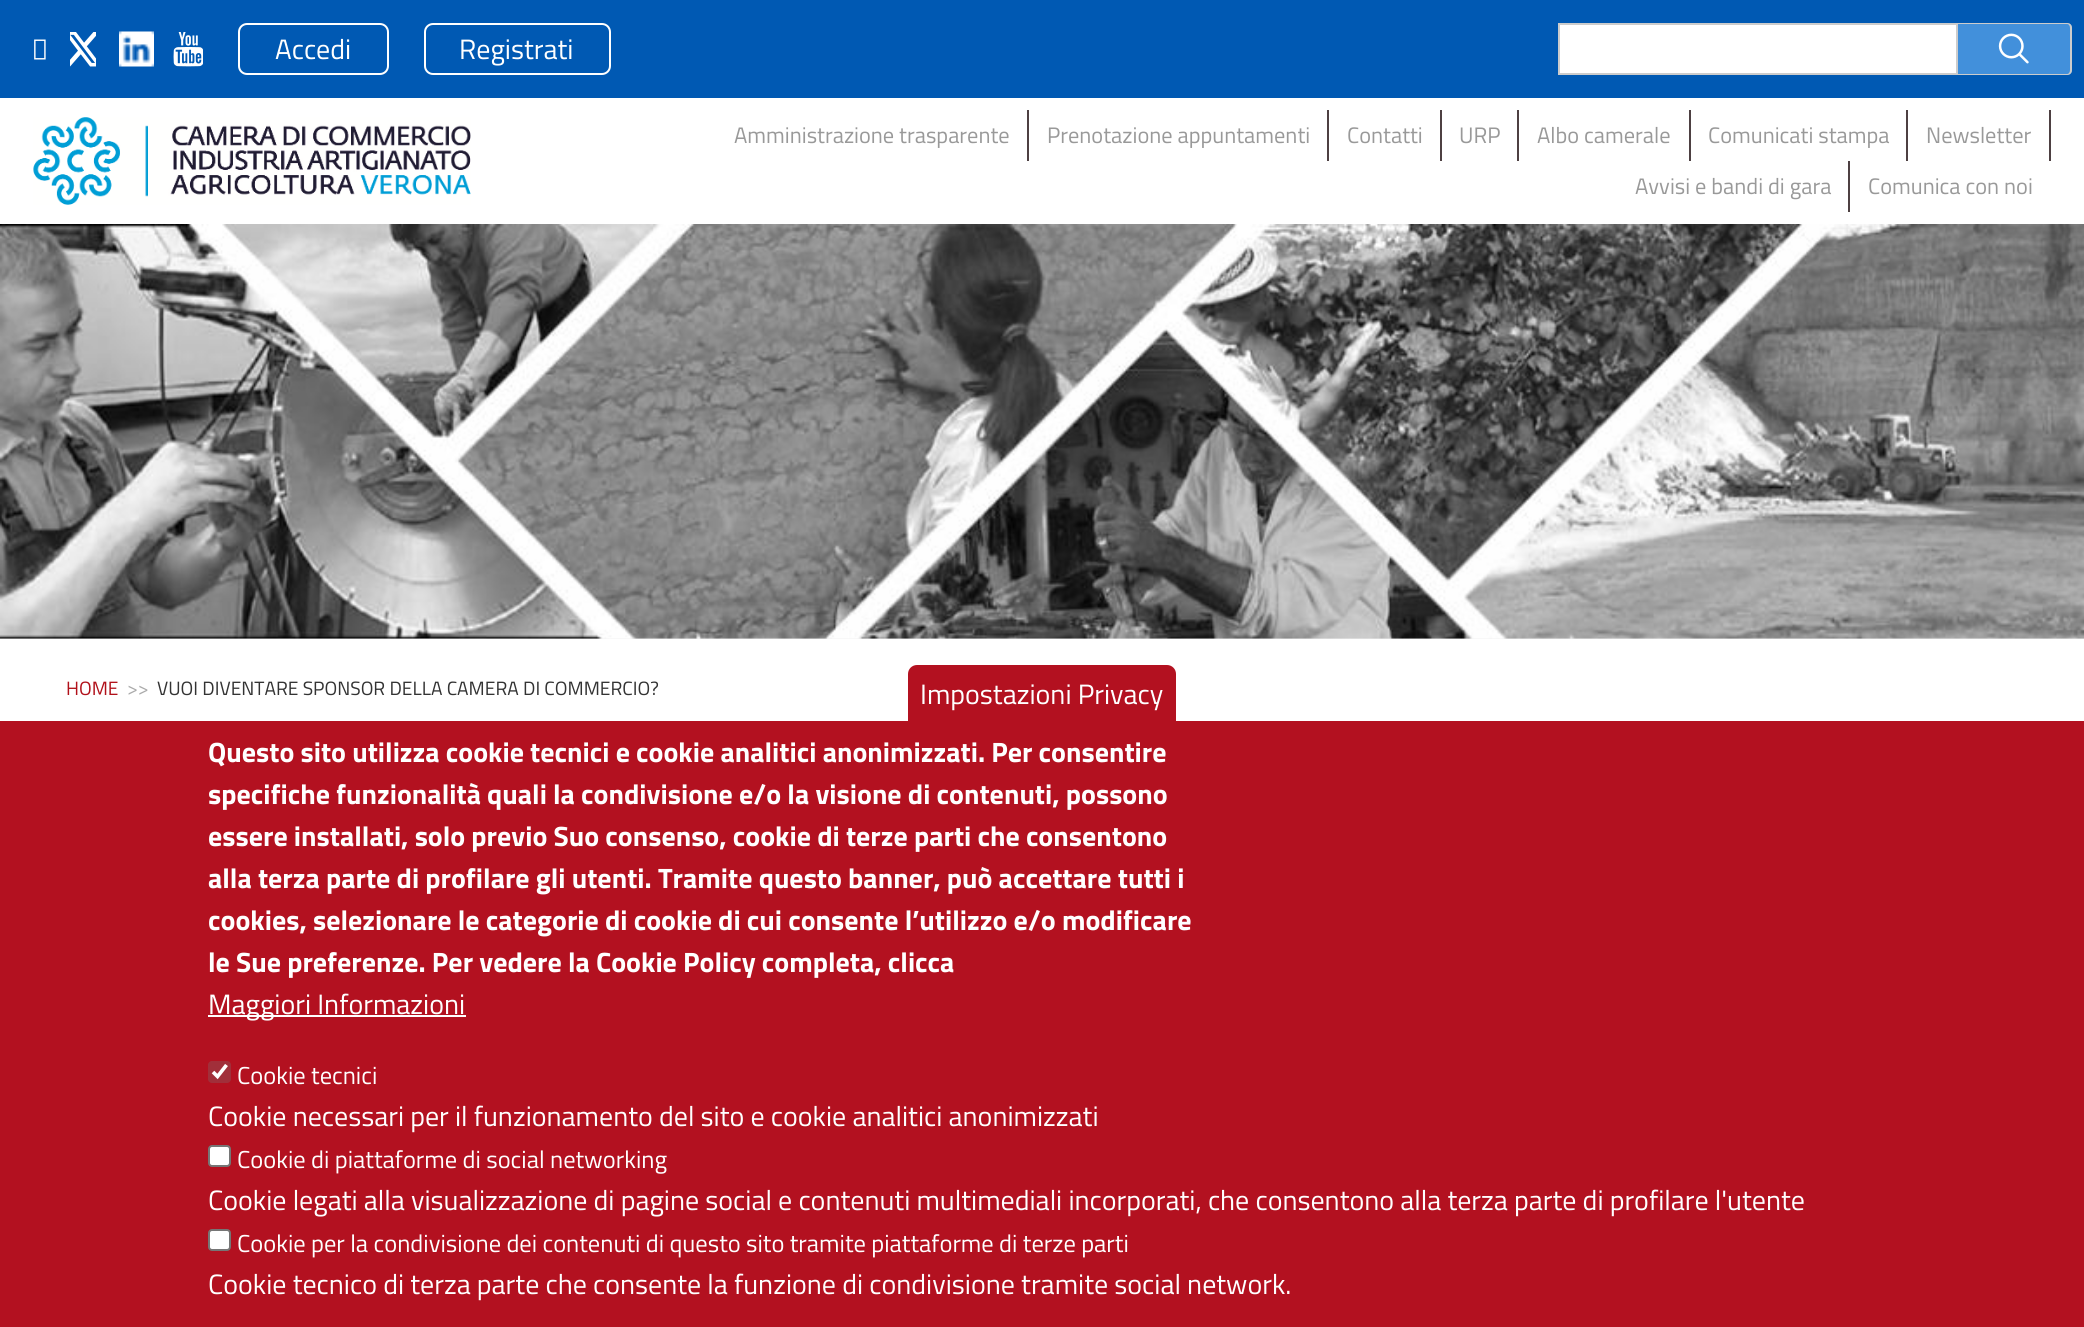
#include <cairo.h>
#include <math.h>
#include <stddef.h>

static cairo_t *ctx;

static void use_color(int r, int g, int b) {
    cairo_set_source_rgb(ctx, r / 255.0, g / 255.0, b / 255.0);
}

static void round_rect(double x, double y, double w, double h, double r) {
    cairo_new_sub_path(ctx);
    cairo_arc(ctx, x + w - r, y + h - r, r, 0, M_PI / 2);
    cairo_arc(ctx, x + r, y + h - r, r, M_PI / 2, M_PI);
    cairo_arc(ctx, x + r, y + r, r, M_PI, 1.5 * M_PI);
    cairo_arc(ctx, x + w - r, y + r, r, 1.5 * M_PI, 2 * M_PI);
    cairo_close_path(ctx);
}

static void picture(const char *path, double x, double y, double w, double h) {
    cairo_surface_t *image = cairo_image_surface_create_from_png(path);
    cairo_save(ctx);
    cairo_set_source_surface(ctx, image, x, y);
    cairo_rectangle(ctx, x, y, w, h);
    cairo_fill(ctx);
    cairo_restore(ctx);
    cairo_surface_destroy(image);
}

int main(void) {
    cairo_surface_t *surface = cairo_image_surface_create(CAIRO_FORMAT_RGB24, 2084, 1327);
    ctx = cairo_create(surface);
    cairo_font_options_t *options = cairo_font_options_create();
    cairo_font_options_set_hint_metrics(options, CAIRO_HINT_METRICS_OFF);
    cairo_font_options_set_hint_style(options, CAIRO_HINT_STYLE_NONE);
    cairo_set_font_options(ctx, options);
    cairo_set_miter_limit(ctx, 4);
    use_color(242, 242, 242);
    cairo_paint(ctx);
    use_color(0, 89, 179);
    cairo_rectangle(ctx, 0, 0, 2084, 98);
    cairo_fill(ctx);
    picture("img1.png", 34, 39, 12, 21);
    picture("img2.png", 70, 32, 26, 35);
    picture("img3.png", 119, 31, 35, 36);
    picture("img4.png", 173, 32, 30, 35);
    round_rect(239, 24, 149, 50, 8);
    use_color(255, 255, 255);
    cairo_stroke(ctx);
    cairo_select_font_face(ctx, "Titillium Web", CAIRO_FONT_SLANT_NORMAL, CAIRO_FONT_WEIGHT_NORMAL);
    cairo_set_font_size(ctx, 28);
    cairo_move_to(ctx, 275, 59);
    cairo_show_text(ctx, "Accedi");
    round_rect(425, 24, 185, 50, 8);
    cairo_stroke(ctx);
    cairo_move_to(ctx, 459, 59);
    cairo_show_text(ctx, "Registrati");
    cairo_rectangle(ctx, 1559, 24, 398, 50);
    cairo_fill_preserve(ctx);
    use_color(204, 204, 204);
    cairo_stroke(ctx);
    use_color(66, 144, 219);
    cairo_new_path(ctx);
    cairo_move_to(ctx, 1958, 23);
    cairo_line_to(ctx, 2067, 23);
    cairo_curve_to(ctx, 2070, 23, 2072, 25, 2072, 28);
    cairo_line_to(ctx, 2072, 70);
    cairo_curve_to(ctx, 2072, 73, 2070, 75, 2067, 75);
    cairo_line_to(ctx, 1958, 75);
    cairo_close_path(ctx);
    cairo_fill(ctx);
    picture("img5.png", 1998, 33, 31, 31);
    use_color(204, 204, 204);
    cairo_set_fill_rule(ctx, CAIRO_FILL_RULE_EVEN_ODD);
    cairo_new_path(ctx);
    cairo_move_to(ctx, 1958, 23);
    cairo_line_to(ctx, 2067, 23);
    cairo_curve_to(ctx, 2070, 23, 2072, 25, 2072, 28);
    cairo_line_to(ctx, 2072, 70);
    cairo_curve_to(ctx, 2072, 73, 2070, 75, 2067, 75);
    cairo_line_to(ctx, 1958, 75);
    cairo_close_path(ctx);
    cairo_move_to(ctx, 1958, 24);
    cairo_line_to(ctx, 2067, 24);
    cairo_curve_to(ctx, 2069, 24, 2070, 26, 2070, 28);
    cairo_line_to(ctx, 2070, 70);
    cairo_curve_to(ctx, 2070, 72, 2069, 74, 2067, 74);
    cairo_line_to(ctx, 1958, 74);
    cairo_close_path(ctx);
    cairo_fill(ctx);
    use_color(255, 255, 255);
    cairo_rectangle(ctx, 0, 98, 2084, 126);
    cairo_fill(ctx);
    picture("img6.png", 33, 117, 438, 88);
    use_color(77, 64, 66);
    cairo_rectangle(ctx, 1027, 110, 2, 51);
    cairo_fill(ctx);
    cairo_set_font_size(ctx, 22.4);
    use_color(153, 153, 153);
    cairo_move_to(ctx, 734, 143);
    cairo_show_text(ctx, "Amministrazione trasparente");
    use_color(77, 64, 66);
    cairo_rectangle(ctx, 1327, 110, 2, 51);
    cairo_fill(ctx);
    use_color(153, 153, 153);
    cairo_move_to(ctx, 1047, 143);
    cairo_show_text(ctx, "Prenotazione appuntamenti");
    use_color(77, 64, 66);
    cairo_rectangle(ctx, 1440, 110, 2, 51);
    cairo_fill(ctx);
    use_color(153, 153, 153);
    cairo_move_to(ctx, 1347, 143);
    cairo_show_text(ctx, "Contatti");
    use_color(77, 64, 66);
    cairo_rectangle(ctx, 1517, 110, 2, 51);
    cairo_fill(ctx);
    use_color(153, 153, 153);
    cairo_move_to(ctx, 1459, 143);
    cairo_show_text(ctx, "URP");
    use_color(77, 64, 66);
    cairo_rectangle(ctx, 1689, 110, 2, 51);
    cairo_fill(ctx);
    use_color(153, 153, 153);
    cairo_move_to(ctx, 1537, 143);
    cairo_show_text(ctx, "Albo camerale");
    use_color(77, 64, 66);
    cairo_rectangle(ctx, 1906, 110, 2, 51);
    cairo_fill(ctx);
    use_color(153, 153, 153);
    cairo_move_to(ctx, 1708, 143);
    cairo_show_text(ctx, "Comunicati stampa");
    use_color(77, 64, 66);
    cairo_rectangle(ctx, 2049, 110, 2, 51);
    cairo_fill(ctx);
    use_color(153, 153, 153);
    cairo_move_to(ctx, 1926, 143);
    cairo_show_text(ctx, "Newsletter");
    use_color(77, 64, 66);
    cairo_rectangle(ctx, 1848, 161, 2, 51);
    cairo_fill(ctx);
    use_color(153, 153, 153);
    cairo_move_to(ctx, 1635, 194);
    cairo_show_text(ctx, "Avvisi e bandi di gara");
    cairo_move_to(ctx, 1868, 194);
    cairo_show_text(ctx, "Comunica con noi");
    picture("img7.png", 0, 224, 2084, 415);
    use_color(255, 255, 255);
    cairo_rectangle(ctx, 0, 639, 2084, 82);
    cairo_fill(ctx);
    cairo_set_font_size(ctx, 19.25);
    use_color(177, 17, 26);
    cairo_move_to(ctx, 66, 695);
    cairo_show_text(ctx, "HOME");
    use_color(170, 170, 170);
    cairo_move_to(ctx, 127, 695);
    cairo_show_text(ctx, ">>");
    use_color(51, 51, 51);
    cairo_move_to(ctx, 157, 695);
    cairo_show_text(ctx, "VUOI DIVENTARE SPONSOR DELLA CAMERA DI COMMERCIO?");
    use_color(179, 17, 32);
    cairo_rectangle(ctx, 0, 721, 2084, 606);
    cairo_fill(ctx);
    cairo_new_path(ctx);
    cairo_move_to(ctx, 917, 665);
    cairo_line_to(ctx, 1167, 665);
    cairo_curve_to(ctx, 1172, 665, 1176, 669, 1176, 674);
    cairo_line_to(ctx, 1176, 721);
    cairo_line_to(ctx, 908, 721);
    cairo_line_to(ctx, 908, 674);
    cairo_curve_to(ctx, 908, 669, 912, 665, 917, 665);
    cairo_close_path(ctx);
    cairo_fill(ctx);
    cairo_set_font_size(ctx, 28);
    use_color(255, 255, 255);
    cairo_move_to(ctx, 920, 704);
    cairo_show_text(ctx, "Impostazioni Privacy");
    cairo_select_font_face(ctx, "Titillium Web", CAIRO_FONT_SLANT_NORMAL, CAIRO_FONT_WEIGHT_BOLD);
    cairo_move_to(ctx, 208, 762);
    cairo_show_text(ctx, "Questo sito utilizza cookie tecnici e cookie analitici anonimizzati. Per consentire");
    cairo_move_to(ctx, 208, 804);
    cairo_show_text(ctx, "specifiche funzionalità quali la condivisione e/o la visione di contenuti, possono");
    cairo_move_to(ctx, 208, 846);
    cairo_show_text(ctx, "essere installati, solo previo Suo consenso, cookie di terze parti che consentono");
    cairo_move_to(ctx, 208, 888);
    cairo_show_text(ctx, "alla terza parte di profilare gli utenti. Tramite questo banner, può accettare tutti i");
    cairo_move_to(ctx, 208, 930);
    cairo_show_text(ctx, "cookies, selezionare le categorie di cookie di cui consente l’utilizzo e/o modificare");
    cairo_move_to(ctx, 208, 972);
    cairo_show_text(ctx, "le Sue preferenze. Per vedere la Cookie Policy completa, clicca");
    cairo_rectangle(ctx, 208, 1015, 258, 2);
    cairo_fill(ctx);
    cairo_select_font_face(ctx, "Titillium Web", CAIRO_FONT_SLANT_NORMAL, CAIRO_FONT_WEIGHT_NORMAL);
    cairo_move_to(ctx, 208, 1014);
    cairo_show_text(ctx, "Maggiori Informazioni");
    use_color(161, 47, 58);
    round_rect(208, 1061, 23, 22, 4);
    cairo_fill(ctx);
    cairo_new_path(ctx);
    cairo_move_to(ctx, 213, 1072);
    cairo_line_to(ctx, 217.5, 1076.5);
    cairo_line_to(ctx, 226.5, 1065);
    use_color(255, 255, 255);
    cairo_set_line_width(ctx, 3.6);
    cairo_stroke(ctx);
    cairo_set_font_size(ctx, 24.5);
    cairo_move_to(ctx, 237, 1084);
    cairo_show_text(ctx, "Cookie tecnici");
    cairo_set_font_size(ctx, 28);
    cairo_move_to(ctx, 208, 1126);
    cairo_show_text(ctx, "Cookie necessari per il funzionamento del sito e cookie analitici anonimizzati");
    round_rect(209, 1146, 21, 20, 3);
    cairo_fill_preserve(ctx);
    use_color(118, 118, 118);
    cairo_set_line_width(ctx, 2);
    cairo_stroke(ctx);
    cairo_set_font_size(ctx, 24.5);
    use_color(255, 255, 255);
    cairo_move_to(ctx, 237, 1168);
    cairo_show_text(ctx, "Cookie di piattaforme di social networking");
    cairo_set_font_size(ctx, 28);
    cairo_move_to(ctx, 208, 1210);
    cairo_show_text(ctx, "Cookie legati alla visualizzazione di pagine social e contenuti multimediali incorporati, che consentono alla terza parte di profilare l'utente");
    round_rect(209, 1230, 21, 20, 3);
    cairo_fill_preserve(ctx);
    use_color(118, 118, 118);
    cairo_stroke(ctx);
    cairo_set_font_size(ctx, 24.5);
    use_color(255, 255, 255);
    cairo_move_to(ctx, 237, 1252);
    cairo_show_text(ctx, "Cookie per la condivisione dei contenuti di questo sito tramite piattaforme di terze parti");
    cairo_set_font_size(ctx, 28);
    cairo_move_to(ctx, 208, 1294);
    cairo_show_text(ctx, "Cookie tecnico di terza parte che consente la funzione di condivisione tramite social network.");
    cairo_surface_write_to_png(surface, "result.png");
    cairo_font_options_destroy(options);
    cairo_destroy(ctx);
    cairo_surface_destroy(surface);
    return 0;
}
